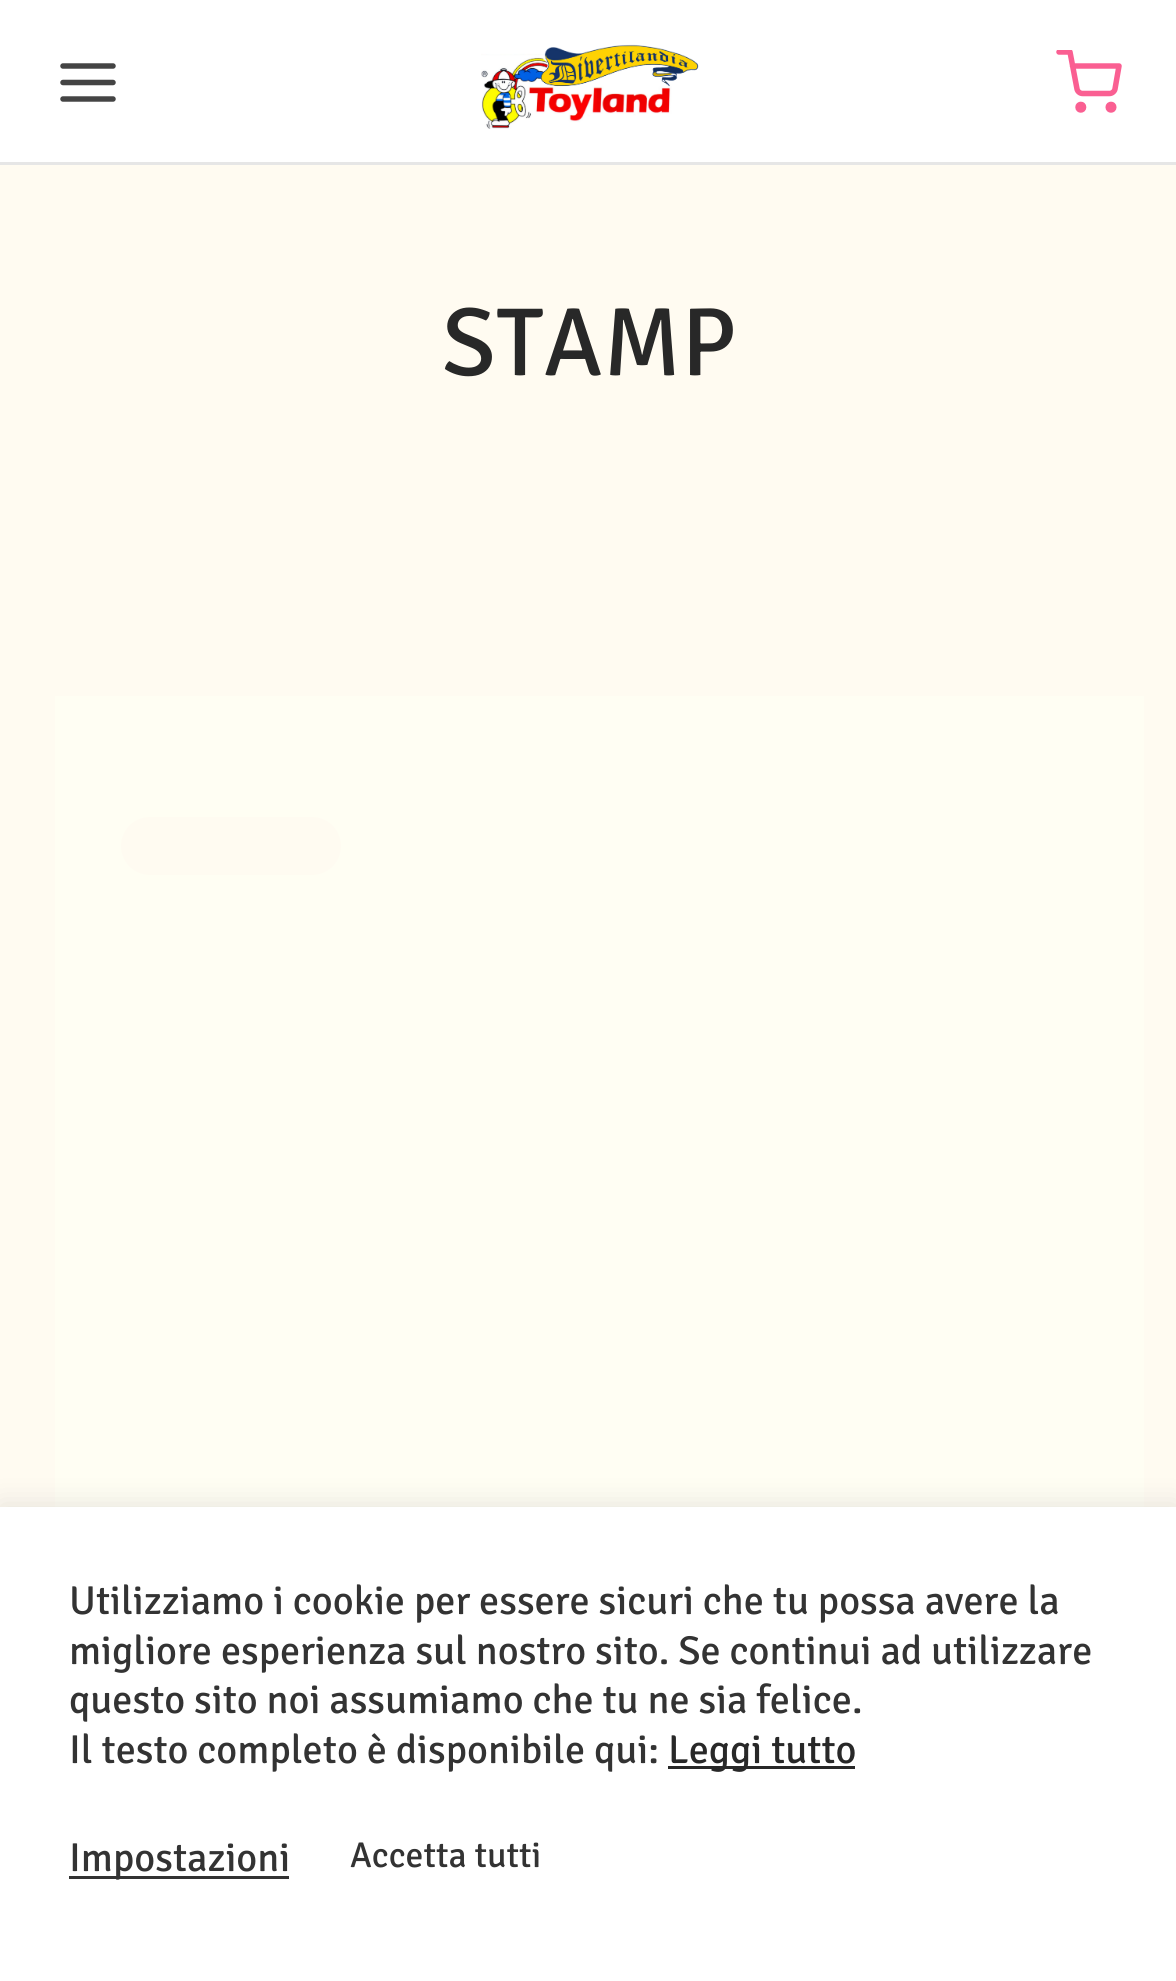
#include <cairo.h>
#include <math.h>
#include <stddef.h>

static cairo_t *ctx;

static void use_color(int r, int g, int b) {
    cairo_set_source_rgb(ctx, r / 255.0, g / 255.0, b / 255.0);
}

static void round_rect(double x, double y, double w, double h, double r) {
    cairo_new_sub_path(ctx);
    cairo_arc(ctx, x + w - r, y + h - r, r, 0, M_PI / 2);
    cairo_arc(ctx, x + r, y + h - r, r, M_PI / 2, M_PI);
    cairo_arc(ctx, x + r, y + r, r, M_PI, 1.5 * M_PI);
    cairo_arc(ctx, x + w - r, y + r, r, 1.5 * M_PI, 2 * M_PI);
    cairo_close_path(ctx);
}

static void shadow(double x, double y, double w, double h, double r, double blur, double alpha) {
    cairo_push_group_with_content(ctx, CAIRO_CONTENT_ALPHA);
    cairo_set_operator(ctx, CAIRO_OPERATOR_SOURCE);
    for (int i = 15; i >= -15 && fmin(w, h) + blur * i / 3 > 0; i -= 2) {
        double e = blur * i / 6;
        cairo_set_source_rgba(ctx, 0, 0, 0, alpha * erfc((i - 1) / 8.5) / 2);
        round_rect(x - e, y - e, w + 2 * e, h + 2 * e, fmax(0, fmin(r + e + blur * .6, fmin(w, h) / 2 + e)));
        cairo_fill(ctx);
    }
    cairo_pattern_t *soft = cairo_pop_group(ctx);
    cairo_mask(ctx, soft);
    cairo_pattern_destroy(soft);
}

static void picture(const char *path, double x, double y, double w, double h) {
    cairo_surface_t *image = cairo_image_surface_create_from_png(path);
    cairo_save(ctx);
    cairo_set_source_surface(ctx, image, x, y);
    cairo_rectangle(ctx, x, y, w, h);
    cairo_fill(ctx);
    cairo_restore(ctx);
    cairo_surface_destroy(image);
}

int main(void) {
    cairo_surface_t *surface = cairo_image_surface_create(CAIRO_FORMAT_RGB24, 1176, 1981);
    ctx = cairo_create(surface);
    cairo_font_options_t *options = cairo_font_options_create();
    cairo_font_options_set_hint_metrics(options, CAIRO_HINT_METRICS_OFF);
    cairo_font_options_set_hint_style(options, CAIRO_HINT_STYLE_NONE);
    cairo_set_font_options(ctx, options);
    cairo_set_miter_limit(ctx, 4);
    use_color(255, 251, 241);
    cairo_paint(ctx);
    use_color(255, 255, 255);
    cairo_rectangle(ctx, 0, 0, 1176, 162);
    cairo_fill(ctx);
    cairo_new_path(ctx);
    cairo_move_to(ctx, 63, 82.5);
    cairo_line_to(ctx, 113, 82.5);
    cairo_move_to(ctx, 63, 66);
    cairo_line_to(ctx, 113, 66);
    cairo_move_to(ctx, 63, 99);
    cairo_line_to(ctx, 113, 99);
    use_color(68, 68, 68);
    cairo_set_line_width(ctx, 5.5);
    cairo_set_line_cap(ctx, CAIRO_LINE_CAP_ROUND);
    cairo_set_line_join(ctx, CAIRO_LINE_JOIN_ROUND);
    cairo_stroke(ctx);
    picture("img1.png", 481, 44, 218, 85);
    cairo_arc(ctx, 1080.8, 107.2, 2.8, 0, 2 * M_PI);
    use_color(250, 95, 146);
    cairo_set_line_cap(ctx, CAIRO_LINE_CAP_BUTT);
    cairo_set_line_join(ctx, CAIRO_LINE_JOIN_MITER);
    cairo_stroke(ctx);
    cairo_arc(ctx, 1111, 107.2, 2.8, 0, 2 * M_PI);
    cairo_stroke(ctx);
    cairo_save(ctx);
    cairo_rectangle(ctx, 1056, 50, 66, 66);
    cairo_clip(ctx);
    cairo_new_path(ctx);
    cairo_move_to(ctx, 1059, 52);
    cairo_line_to(ctx, 1070, 52);
    cairo_line_to(ctx, 1077, 89);
    cairo_curve_to(ctx, 1077.5, 91.5, 1080, 93.5, 1082.5, 93.5);
    cairo_line_to(ctx, 1109.5, 93.5);
    cairo_curve_to(ctx, 1112, 93.5, 1114.5, 91.5, 1115, 89);
    cairo_line_to(ctx, 1119, 66);
    cairo_line_to(ctx, 1072.5, 66);
    cairo_set_line_cap(ctx, CAIRO_LINE_CAP_ROUND);
    cairo_set_line_join(ctx, CAIRO_LINE_JOIN_ROUND);
    cairo_stroke(ctx);
    cairo_restore(ctx);
    use_color(230, 230, 230);
    cairo_rectangle(ctx, 0, 162, 1176, 3);
    cairo_fill(ctx);
    cairo_select_font_face(ctx, "Signika Light", CAIRO_FONT_SLANT_NORMAL, CAIRO_FONT_WEIGHT_NORMAL);
    cairo_set_font_size(ctx, 97);
    use_color(40, 40, 40);
    cairo_move_to(ctx, 442, 375);
    cairo_show_text(ctx, "STAMP");
    use_color(255, 254, 243);
    cairo_rectangle(ctx, 55, 696, 1089, 811);
    cairo_fill(ctx);
    use_color(255, 251, 241);
    round_rect(121, 817, 220, 58, 29);
    cairo_fill(ctx);
    use_color(172, 171, 171);
    shadow(0, 1504, 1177, 476, 0, 14, 0.3);
    use_color(255, 255, 255);
    cairo_rectangle(ctx, 0, 1507, 1176, 474);
    cairo_fill(ctx);
    cairo_set_font_size(ctx, 40.3);
    use_color(51, 51, 51);
    cairo_move_to(ctx, 69, 1614);
    cairo_show_text(ctx, "Utilizziamo i cookie per essere sicuri che tu possa avere la");
    cairo_move_to(ctx, 69, 1664);
    cairo_show_text(ctx, "migliore esperienza sul nostro sito. Se continui ad utilizzare");
    cairo_move_to(ctx, 69, 1713);
    cairo_show_text(ctx, "questo sito noi assumiamo che tu ne sia felice.");
    cairo_move_to(ctx, 69, 1763);
    cairo_show_text(ctx, "Il testo completo è disponibile qui:");
    use_color(40, 40, 40);
    cairo_rectangle(ctx, 668, 1766, 187, 3);
    cairo_fill(ctx);
    cairo_move_to(ctx, 668, 1763);
    cairo_show_text(ctx, "Leggi tutto");
    use_color(51, 51, 51);
    cairo_rectangle(ctx, 69, 1876, 220, 3);
    cairo_fill(ctx);
    cairo_move_to(ctx, 69, 1871);
    cairo_show_text(ctx, "Impostazioni");
    cairo_set_font_size(ctx, 35.75);
    cairo_move_to(ctx, 350, 1867);
    cairo_show_text(ctx, "Accetta tutti");
    cairo_surface_write_to_png(surface, "result.png");
    cairo_font_options_destroy(options);
    cairo_destroy(ctx);
    cairo_surface_destroy(surface);
    return 0;
}
